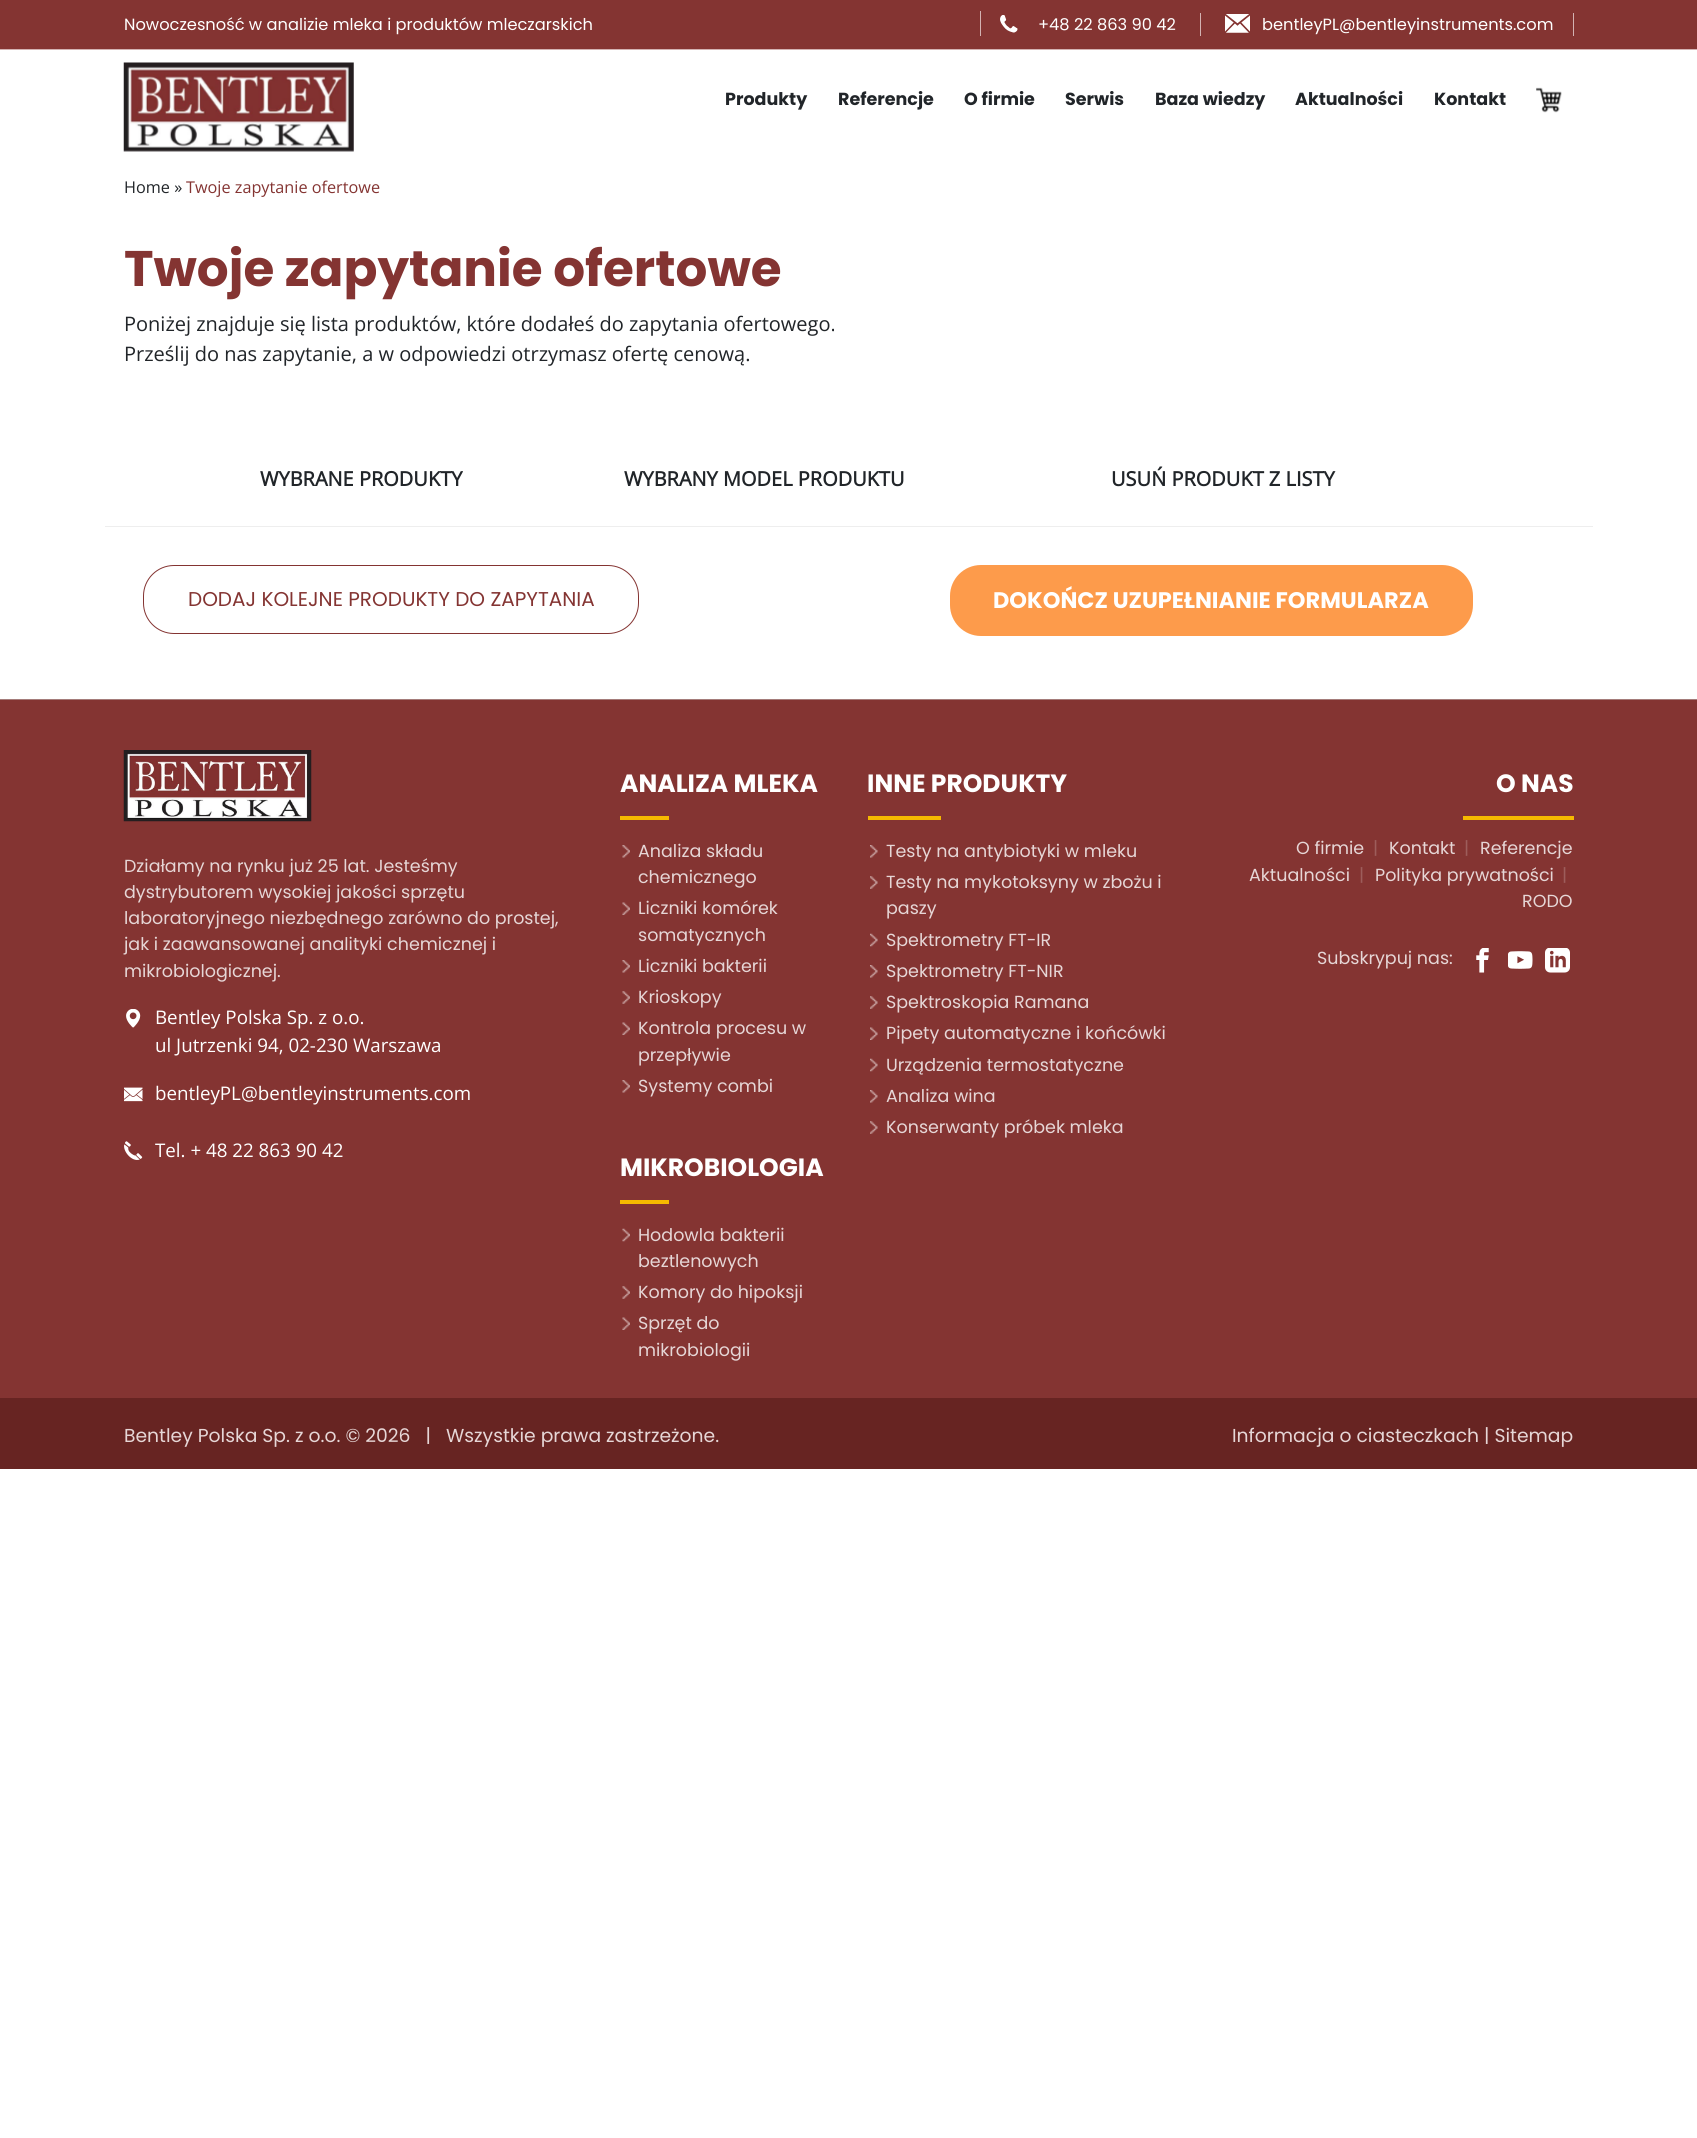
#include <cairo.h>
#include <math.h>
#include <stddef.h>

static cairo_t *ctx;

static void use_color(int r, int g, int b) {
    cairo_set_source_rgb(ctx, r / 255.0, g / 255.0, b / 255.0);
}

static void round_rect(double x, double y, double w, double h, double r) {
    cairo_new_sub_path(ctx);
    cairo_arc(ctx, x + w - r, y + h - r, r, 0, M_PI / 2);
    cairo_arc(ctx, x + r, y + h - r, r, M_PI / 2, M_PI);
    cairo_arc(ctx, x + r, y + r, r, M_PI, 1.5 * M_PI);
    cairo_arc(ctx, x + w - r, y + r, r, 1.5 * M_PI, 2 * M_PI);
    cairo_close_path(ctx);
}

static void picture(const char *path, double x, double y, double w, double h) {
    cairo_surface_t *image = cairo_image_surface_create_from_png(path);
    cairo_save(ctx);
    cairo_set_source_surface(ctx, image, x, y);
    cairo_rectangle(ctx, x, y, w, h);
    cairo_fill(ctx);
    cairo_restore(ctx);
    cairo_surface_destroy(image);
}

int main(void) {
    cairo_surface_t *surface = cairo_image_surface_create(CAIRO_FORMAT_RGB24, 1697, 2138);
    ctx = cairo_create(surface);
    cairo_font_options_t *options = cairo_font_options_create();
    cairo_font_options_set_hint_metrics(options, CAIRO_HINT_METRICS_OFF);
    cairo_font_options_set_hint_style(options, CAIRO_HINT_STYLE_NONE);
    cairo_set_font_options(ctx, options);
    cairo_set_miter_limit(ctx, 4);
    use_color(255, 255, 255);
    cairo_paint(ctx);
    use_color(132, 52, 50);
    cairo_rectangle(ctx, 0, 0, 1697, 49);
    cairo_fill(ctx);
    use_color(211, 178, 178);
    cairo_rectangle(ctx, 0, 49, 1697, 1);
    cairo_fill(ctx);
    cairo_select_font_face(ctx, "Poppins", CAIRO_FONT_SLANT_NORMAL, CAIRO_FONT_WEIGHT_NORMAL);
    cairo_set_font_size(ctx, 16.25);
    use_color(255, 255, 255);
    cairo_move_to(ctx, 124, 30);
    cairo_show_text(ctx, "Nowoczesność w analizie mleka i produktów mleczarskich");
    use_color(211, 178, 178);
    cairo_rectangle(ctx, 980, 11, 1, 25);
    cairo_fill(ctx);
    cairo_rectangle(ctx, 1200, 13, 1, 23);
    cairo_fill(ctx);
    picture("img1.png", 1000, 15, 18, 18);
    use_color(255, 255, 255);
    cairo_move_to(ctx, 1038, 30);
    cairo_show_text(ctx, "+48 22 863 90 42");
    use_color(211, 178, 178);
    cairo_rectangle(ctx, 1573, 13, 1, 23);
    cairo_fill(ctx);
    picture("img2.png", 1225, 14, 25, 19);
    use_color(255, 255, 255);
    cairo_move_to(ctx, 1262, 30);
    cairo_show_text(ctx, "bentleyPL@bentleyinstruments.com");
    picture("img3.png", 123, 62, 231, 90);
    cairo_select_font_face(ctx, "Poppins", CAIRO_FONT_SLANT_NORMAL, CAIRO_FONT_WEIGHT_BOLD);
    cairo_set_font_size(ctx, 17.5);
    use_color(33, 37, 41);
    cairo_move_to(ctx, 725, 105);
    cairo_show_text(ctx, "Produkty");
    cairo_move_to(ctx, 838, 105);
    cairo_show_text(ctx, "Referencje");
    cairo_move_to(ctx, 964, 105);
    cairo_show_text(ctx, "O firmie");
    cairo_move_to(ctx, 1065, 105);
    cairo_show_text(ctx, "Serwis");
    cairo_move_to(ctx, 1155, 105);
    cairo_show_text(ctx, "Baza wiedzy");
    cairo_move_to(ctx, 1295, 105);
    cairo_show_text(ctx, "Aktualności");
    cairo_move_to(ctx, 1434, 105);
    cairo_show_text(ctx, "Kontakt");
    picture("img4.png", 1536, 87, 26, 26);
    cairo_select_font_face(ctx, "Open Sans", CAIRO_FONT_SLANT_NORMAL, CAIRO_FONT_WEIGHT_NORMAL);
    cairo_set_font_size(ctx, 16.25);
    cairo_move_to(ctx, 124, 193);
    cairo_show_text(ctx, "Home »");
    use_color(132, 52, 50);
    cairo_move_to(ctx, 186, 193);
    cairo_show_text(ctx, "Twoje zapytanie ofertowe");
    cairo_select_font_face(ctx, "Poppins", CAIRO_FONT_SLANT_NORMAL, CAIRO_FONT_WEIGHT_BOLD);
    cairo_set_font_size(ctx, 50);
    cairo_move_to(ctx, 124, 286);
    cairo_show_text(ctx, "Twoje zapytanie ofertowe");
    cairo_select_font_face(ctx, "Open Sans", CAIRO_FONT_SLANT_NORMAL, CAIRO_FONT_WEIGHT_NORMAL);
    cairo_set_font_size(ctx, 20);
    use_color(33, 37, 41);
    cairo_move_to(ctx, 124, 331);
    cairo_show_text(ctx, "Poniżej znajduje się lista produktów, które dodałeś do zapytania ofertowego.");
    cairo_move_to(ctx, 124, 361);
    cairo_show_text(ctx, "Prześlij do nas zapytanie, a w odpowiedzi otrzymasz ofertę cenową.");
    use_color(238, 238, 238);
    cairo_rectangle(ctx, 105, 526, 1488, 1);
    cairo_fill(ctx);
    cairo_select_font_face(ctx, "Open Sans", CAIRO_FONT_SLANT_NORMAL, CAIRO_FONT_WEIGHT_BOLD);
    use_color(33, 37, 41);
    cairo_move_to(ctx, 260, 486);
    cairo_show_text(ctx, "WYBRANE PRODUKTY");
    cairo_move_to(ctx, 624, 486);
    cairo_show_text(ctx, "WYBRANY MODEL PRODUKTU");
    cairo_move_to(ctx, 1111, 486);
    cairo_show_text(ctx, "USUŃ PRODUKT Z LISTY");
    round_rect(143.5, 565.5, 495, 68, 30.5);
    use_color(132, 52, 50);
    cairo_set_line_width(ctx, 1);
    cairo_stroke(ctx);
    cairo_select_font_face(ctx, "Poppins", CAIRO_FONT_SLANT_NORMAL, CAIRO_FONT_WEIGHT_NORMAL);
    cairo_move_to(ctx, 188, 606);
    cairo_show_text(ctx, "DODAJ KOLEJNE PRODUKTY DO ZAPYTANIA");
    use_color(253, 155, 75);
    round_rect(950, 565, 523, 71, 31);
    cairo_fill(ctx);
    cairo_select_font_face(ctx, "Poppins", CAIRO_FONT_SLANT_NORMAL, CAIRO_FONT_WEIGHT_BOLD);
    cairo_set_font_size(ctx, 22.5);
    use_color(255, 255, 255);
    cairo_move_to(ctx, 993, 608);
    cairo_show_text(ctx, "DOKOŃCZ UZUPEŁNIANIE FORMULARZA");
    use_color(132, 52, 50);
    cairo_rectangle(ctx, 0, 700, 1697, 698);
    cairo_fill(ctx);
    use_color(164, 124, 122);
    cairo_rectangle(ctx, 0, 699, 1697, 1);
    cairo_fill(ctx);
    picture("img5.png", 123, 750, 189, 72);
    cairo_select_font_face(ctx, "Poppins", CAIRO_FONT_SLANT_NORMAL, CAIRO_FONT_WEIGHT_NORMAL);
    cairo_set_font_size(ctx, 17.5);
    use_color(230, 214, 214);
    cairo_move_to(ctx, 124, 872);
    cairo_show_text(ctx, "Działamy na rynku już 25 lat. Jesteśmy");
    cairo_move_to(ctx, 124, 898);
    cairo_show_text(ctx, "dystrybutorem wysokiej jakości sprzętu");
    cairo_move_to(ctx, 124, 924);
    cairo_show_text(ctx, "laboratoryjnego niezbędnego zarówno do prostej,");
    cairo_move_to(ctx, 124, 950);
    cairo_show_text(ctx, "jak i zaawansowanej analityki chemicznej i");
    cairo_move_to(ctx, 124, 977);
    cairo_show_text(ctx, "mikrobiologicznej.");
    picture("img6.png", 126, 1009, 15, 19);
    cairo_select_font_face(ctx, "Open Sans", CAIRO_FONT_SLANT_NORMAL, CAIRO_FONT_WEIGHT_NORMAL);
    cairo_set_font_size(ctx, 18.75);
    use_color(255, 255, 255);
    cairo_move_to(ctx, 155, 1024);
    cairo_show_text(ctx, "Bentley Polska Sp. z o.o.");
    cairo_move_to(ctx, 155, 1052);
    cairo_show_text(ctx, "ul Jutrzenki 94, 02-230 Warszawa");
    picture("img7.png", 124, 1087, 19, 15);
    cairo_move_to(ctx, 155, 1100);
    cairo_show_text(ctx, "bentleyPL@bentleyinstruments.com");
    picture("img8.png", 124, 1141, 19, 19);
    cairo_move_to(ctx, 155, 1157);
    cairo_show_text(ctx, "Tel. + 48 22 863 90 42");
    cairo_select_font_face(ctx, "Poppins", CAIRO_FONT_SLANT_NORMAL, CAIRO_FONT_WEIGHT_BOLD);
    cairo_set_font_size(ctx, 25);
    cairo_move_to(ctx, 620, 792);
    cairo_show_text(ctx, "ANALIZA MLEKA");
    use_color(245, 185, 0);
    cairo_rectangle(ctx, 620, 816, 49, 4);
    cairo_fill(ctx);
    picture("img9.png", 622, 845, 8, 13);
    cairo_select_font_face(ctx, "Poppins", CAIRO_FONT_SLANT_NORMAL, CAIRO_FONT_WEIGHT_NORMAL);
    cairo_set_font_size(ctx, 17.5);
    use_color(230, 214, 214);
    cairo_move_to(ctx, 638, 857);
    cairo_show_text(ctx, "Analiza składu");
    cairo_move_to(ctx, 638, 883);
    cairo_show_text(ctx, "chemicznego");
    picture("img10.png", 622, 902, 8, 13);
    cairo_move_to(ctx, 638, 914);
    cairo_show_text(ctx, "Liczniki komórek");
    cairo_move_to(ctx, 638, 941);
    cairo_show_text(ctx, "somatycznych");
    picture("img9.png", 622, 960, 8, 13);
    cairo_move_to(ctx, 638, 972);
    cairo_show_text(ctx, "Liczniki bakterii");
    picture("img11.png", 622, 991, 8, 13);
    cairo_move_to(ctx, 638, 1003);
    cairo_show_text(ctx, "Krioskopy");
    picture("img12.png", 622, 1022, 8, 13);
    cairo_move_to(ctx, 638, 1034);
    cairo_show_text(ctx, "Kontrola procesu w");
    cairo_move_to(ctx, 638, 1061);
    cairo_show_text(ctx, "przepływie");
    picture("img9.png", 622, 1080, 8, 13);
    cairo_move_to(ctx, 638, 1092);
    cairo_show_text(ctx, "Systemy combi");
    cairo_select_font_face(ctx, "Poppins", CAIRO_FONT_SLANT_NORMAL, CAIRO_FONT_WEIGHT_BOLD);
    cairo_set_font_size(ctx, 25);
    use_color(255, 255, 255);
    cairo_move_to(ctx, 620, 1176);
    cairo_show_text(ctx, "MIKROBIOLOGIA");
    use_color(245, 185, 0);
    cairo_rectangle(ctx, 620, 1200, 49, 4);
    cairo_fill(ctx);
    picture("img13.png", 622, 1228, 8, 14);
    cairo_select_font_face(ctx, "Poppins", CAIRO_FONT_SLANT_NORMAL, CAIRO_FONT_WEIGHT_NORMAL);
    cairo_set_font_size(ctx, 17.5);
    use_color(230, 214, 214);
    cairo_move_to(ctx, 638, 1241);
    cairo_show_text(ctx, "Hodowla bakterii");
    cairo_move_to(ctx, 638, 1267);
    cairo_show_text(ctx, "beztlenowych");
    picture("img11.png", 622, 1286, 8, 13);
    cairo_move_to(ctx, 638, 1298);
    cairo_show_text(ctx, "Komory do hipoksji");
    picture("img10.png", 622, 1317, 8, 13);
    cairo_move_to(ctx, 638, 1329);
    cairo_show_text(ctx, "Sprzęt do");
    cairo_move_to(ctx, 638, 1356);
    cairo_show_text(ctx, "mikrobiologii");
    cairo_select_font_face(ctx, "Poppins", CAIRO_FONT_SLANT_NORMAL, CAIRO_FONT_WEIGHT_BOLD);
    cairo_set_font_size(ctx, 25);
    use_color(255, 255, 255);
    cairo_move_to(ctx, 867, 792);
    cairo_show_text(ctx, "INNE PRODUKTY");
    use_color(245, 185, 0);
    cairo_rectangle(ctx, 868, 816, 73, 4);
    cairo_fill(ctx);
    picture("img14.png", 870, 845, 8, 13);
    cairo_select_font_face(ctx, "Poppins", CAIRO_FONT_SLANT_NORMAL, CAIRO_FONT_WEIGHT_NORMAL);
    cairo_set_font_size(ctx, 17.5);
    use_color(230, 214, 214);
    cairo_move_to(ctx, 886, 857);
    cairo_show_text(ctx, "Testy na antybiotyki w mleku");
    picture("img15.png", 870, 876, 8, 13);
    cairo_move_to(ctx, 886, 888);
    cairo_show_text(ctx, "Testy na mykotoksyny w zbożu i");
    cairo_move_to(ctx, 886, 914);
    cairo_show_text(ctx, "paszy");
    picture("img16.png", 870, 933, 8, 14);
    cairo_move_to(ctx, 886, 946);
    cairo_show_text(ctx, "Spektrometry FT-IR");
    picture("img14.png", 870, 965, 8, 13);
    cairo_move_to(ctx, 886, 977);
    cairo_show_text(ctx, "Spektrometry FT-NIR");
    picture("img15.png", 870, 996, 8, 13);
    cairo_move_to(ctx, 886, 1008);
    cairo_show_text(ctx, "Spektroskopia Ramana");
    picture("img17.png", 870, 1027, 8, 13);
    cairo_move_to(ctx, 886, 1039);
    cairo_show_text(ctx, "Pipety automatyczne i końcówki");
    picture("img16.png", 870, 1058, 8, 14);
    cairo_move_to(ctx, 886, 1071);
    cairo_show_text(ctx, "Urządzenia termostatyczne");
    picture("img14.png", 870, 1090, 8, 13);
    cairo_move_to(ctx, 886, 1102);
    cairo_show_text(ctx, "Analiza wina");
    picture("img15.png", 870, 1121, 8, 13);
    cairo_move_to(ctx, 886, 1133);
    cairo_show_text(ctx, "Konserwanty próbek mleka");
    cairo_select_font_face(ctx, "Poppins", CAIRO_FONT_SLANT_NORMAL, CAIRO_FONT_WEIGHT_BOLD);
    cairo_set_font_size(ctx, 25);
    use_color(255, 255, 255);
    cairo_move_to(ctx, 1496, 792);
    cairo_show_text(ctx, "O NAS");
    use_color(245, 185, 0);
    cairo_rectangle(ctx, 1463, 816, 111, 4);
    cairo_fill(ctx);
    cairo_select_font_face(ctx, "Poppins", CAIRO_FONT_SLANT_NORMAL, CAIRO_FONT_WEIGHT_NORMAL);
    cairo_set_font_size(ctx, 17.5);
    use_color(230, 214, 214);
    cairo_move_to(ctx, 1296, 854);
    cairo_show_text(ctx, "O firmie");
    use_color(157, 93, 91);
    cairo_move_to(ctx, 1373, 854);
    cairo_show_text(ctx, "|");
    use_color(230, 214, 214);
    cairo_move_to(ctx, 1389, 854);
    cairo_show_text(ctx, "Kontakt");
    use_color(157, 93, 91);
    cairo_move_to(ctx, 1464, 854);
    cairo_show_text(ctx, "|");
    use_color(230, 214, 214);
    cairo_move_to(ctx, 1480, 854);
    cairo_show_text(ctx, "Referencje");
    cairo_move_to(ctx, 1249, 881);
    cairo_show_text(ctx, "Aktualności");
    use_color(157, 93, 91);
    cairo_move_to(ctx, 1359, 881);
    cairo_show_text(ctx, "|");
    use_color(230, 214, 214);
    cairo_move_to(ctx, 1375, 881);
    cairo_show_text(ctx, "Polityka prywatności");
    use_color(157, 93, 91);
    cairo_move_to(ctx, 1562, 881);
    cairo_show_text(ctx, "|");
    use_color(230, 214, 214);
    cairo_move_to(ctx, 1522, 907);
    cairo_show_text(ctx, "RODO");
    cairo_move_to(ctx, 1317, 964);
    cairo_show_text(ctx, "Subskrypuj nas:");
    picture("img18.png", 1476, 948, 13, 25);
    picture("img19.png", 1508, 951, 25, 18);
    picture("img20.png", 1545, 948, 25, 25);
    use_color(103, 36, 34);
    cairo_rectangle(ctx, 0, 1398, 1697, 71);
    cairo_fill(ctx);
    cairo_set_font_size(ctx, 18.75);
    use_color(230, 214, 214);
    cairo_move_to(ctx, 124, 1442);
    cairo_show_text(ctx, "Bentley Polska Sp. z o.o. © 2026   |   Wszystkie prawa zastrzeżone.");
    cairo_move_to(ctx, 1232, 1442);
    cairo_show_text(ctx, "Informacja o ciasteczkach | Sitemap");
    cairo_surface_write_to_png(surface, "result.png");
    cairo_font_options_destroy(options);
    cairo_destroy(ctx);
    cairo_surface_destroy(surface);
    return 0;
}
